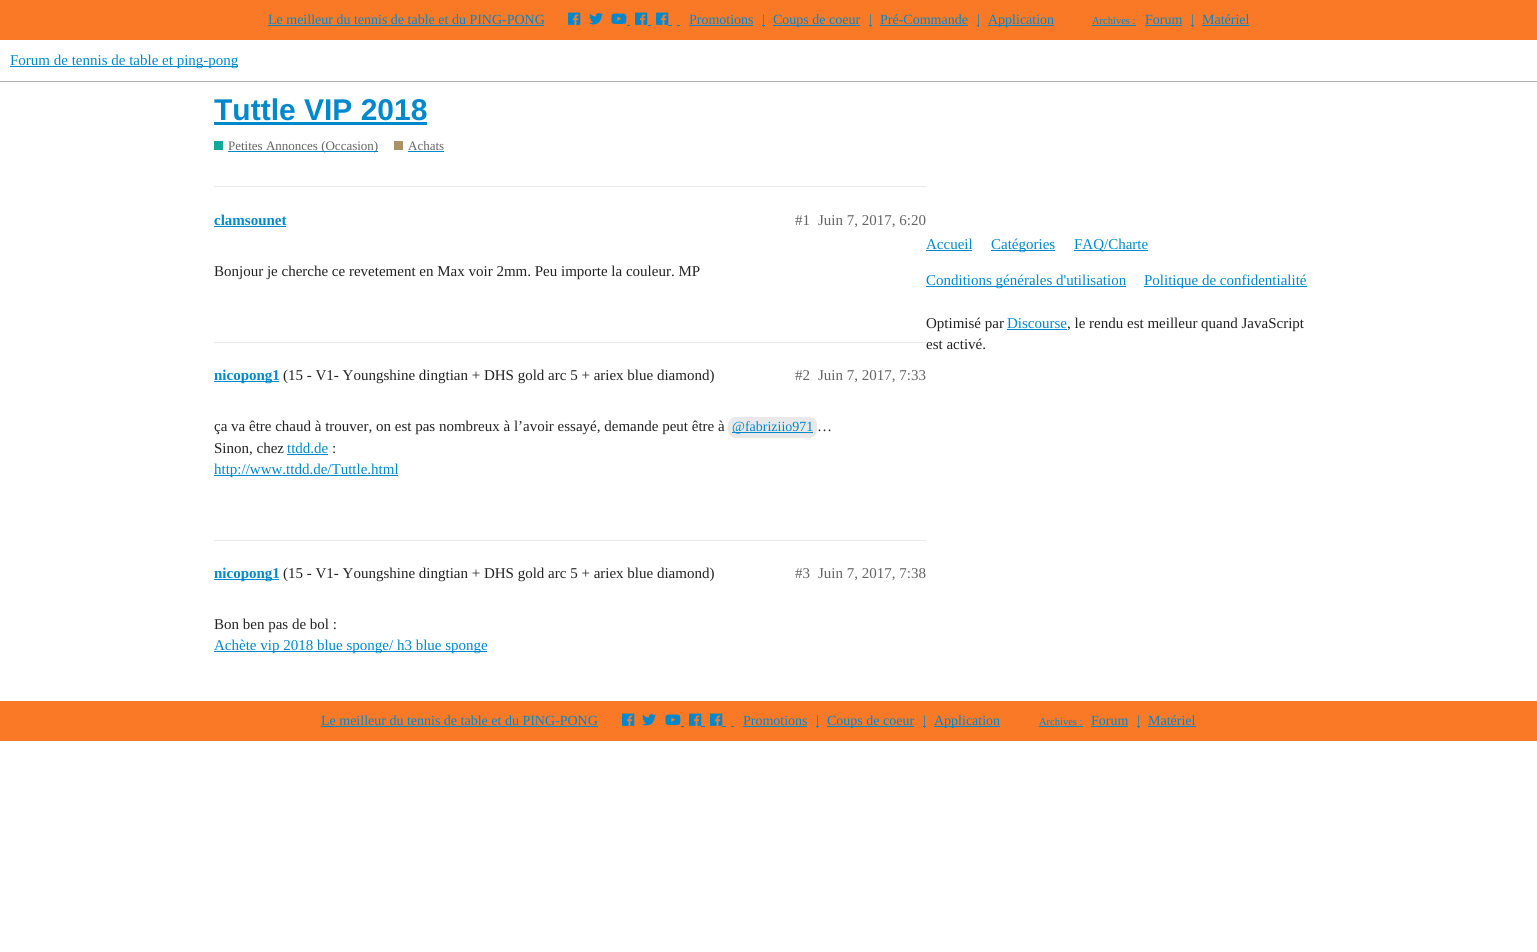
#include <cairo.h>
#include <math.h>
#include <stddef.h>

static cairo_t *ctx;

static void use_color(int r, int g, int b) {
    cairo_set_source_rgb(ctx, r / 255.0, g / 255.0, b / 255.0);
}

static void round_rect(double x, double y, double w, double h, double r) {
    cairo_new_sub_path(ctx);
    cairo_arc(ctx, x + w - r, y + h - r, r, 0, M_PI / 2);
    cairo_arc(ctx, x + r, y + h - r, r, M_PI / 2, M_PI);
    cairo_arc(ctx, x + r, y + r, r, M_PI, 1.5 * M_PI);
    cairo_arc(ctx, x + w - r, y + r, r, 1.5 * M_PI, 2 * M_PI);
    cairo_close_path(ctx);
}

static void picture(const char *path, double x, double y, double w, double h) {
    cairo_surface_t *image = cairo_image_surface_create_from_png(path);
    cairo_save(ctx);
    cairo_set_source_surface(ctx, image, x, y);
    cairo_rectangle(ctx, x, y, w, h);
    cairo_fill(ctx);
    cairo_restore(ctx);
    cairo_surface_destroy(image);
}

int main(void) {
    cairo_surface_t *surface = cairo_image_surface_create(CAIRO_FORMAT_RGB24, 1537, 952);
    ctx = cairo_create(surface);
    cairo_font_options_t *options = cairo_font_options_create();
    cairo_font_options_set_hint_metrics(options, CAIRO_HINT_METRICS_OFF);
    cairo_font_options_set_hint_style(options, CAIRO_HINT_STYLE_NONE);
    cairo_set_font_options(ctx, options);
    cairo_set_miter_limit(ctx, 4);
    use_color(255, 255, 255);
    cairo_paint(ctx);
    use_color(249, 121, 39);
    cairo_rectangle(ctx, 0, 0, 1537, 40);
    cairo_fill(ctx);
    cairo_select_font_face(ctx, "Liberation Serif", CAIRO_FONT_SLANT_NORMAL, CAIRO_FONT_WEIGHT_NORMAL);
    cairo_set_font_size(ctx, 14);
    use_color(0, 136, 204);
    cairo_move_to(ctx, 268, 24);
    cairo_show_text(ctx, "Le meilleur du tennis de table et du PING-PONG");
    cairo_rectangle(ctx, 268, 25, 276, 1);
    cairo_fill(ctx);
    picture("img1.png", 568, 12, 13, 13);
    picture("img2.png", 589, 13, 14, 12);
    picture("img3.png", 611, 13, 16, 11);
    cairo_rectangle(ctx, 627, 25, 3, 1);
    cairo_fill(ctx);
    picture("img1.png", 635, 12, 13, 13);
    cairo_rectangle(ctx, 648, 25, 3, 1);
    cairo_fill(ctx);
    picture("img1.png", 656, 12, 13, 13);
    cairo_rectangle(ctx, 668, 25, 4, 1);
    cairo_fill(ctx);
    cairo_move_to(ctx, 689, 24);
    cairo_show_text(ctx, "Promotions");
    cairo_rectangle(ctx, 689, 25, 64, 1);
    cairo_fill(ctx);
    cairo_rectangle(ctx, 762, 25, 3, 1);
    cairo_fill(ctx);
    cairo_move_to(ctx, 762, 24);
    cairo_show_text(ctx, "|");
    cairo_rectangle(ctx, 773, 25, 87, 1);
    cairo_fill(ctx);
    cairo_move_to(ctx, 773, 24);
    cairo_show_text(ctx, "Coups de coeur");
    cairo_rectangle(ctx, 869, 25, 3, 1);
    cairo_fill(ctx);
    cairo_move_to(ctx, 869, 24);
    cairo_show_text(ctx, "|");
    cairo_move_to(ctx, 880, 24);
    cairo_show_text(ctx, "Pré-Commande");
    cairo_rectangle(ctx, 880, 25, 88, 1);
    cairo_fill(ctx);
    cairo_rectangle(ctx, 977, 25, 2, 1);
    cairo_fill(ctx);
    cairo_move_to(ctx, 977, 24);
    cairo_show_text(ctx, "|");
    cairo_rectangle(ctx, 988, 25, 66, 1);
    cairo_fill(ctx);
    cairo_move_to(ctx, 988, 24);
    cairo_show_text(ctx, "Application");
    cairo_set_font_size(ctx, 10.5);
    cairo_move_to(ctx, 1092, 24);
    cairo_show_text(ctx, "Archives :");
    cairo_rectangle(ctx, 1092, 25, 44, 1);
    cairo_fill(ctx);
    cairo_set_font_size(ctx, 14);
    cairo_move_to(ctx, 1145, 24);
    cairo_show_text(ctx, "Forum");
    cairo_rectangle(ctx, 1145, 25, 37, 1);
    cairo_fill(ctx);
    cairo_rectangle(ctx, 1191, 25, 3, 1);
    cairo_fill(ctx);
    cairo_move_to(ctx, 1191, 24);
    cairo_show_text(ctx, "|");
    cairo_move_to(ctx, 1202, 24);
    cairo_show_text(ctx, "Matériel");
    cairo_rectangle(ctx, 1202, 25, 47, 1);
    cairo_fill(ctx);
    cairo_rectangle(ctx, 677, 25, 3, 1);
    cairo_fill(ctx);
    use_color(175, 175, 175);
    cairo_rectangle(ctx, 0, 81, 1537, 1);
    cairo_fill(ctx);
    use_color(0, 136, 204);
    cairo_rectangle(ctx, 10, 66, 228, 1);
    cairo_fill(ctx);
    cairo_set_font_size(ctx, 15);
    cairo_move_to(ctx, 10, 65);
    cairo_show_text(ctx, "Forum de tennis de table et ping-pong");
    cairo_select_font_face(ctx, "Liberation Sans", CAIRO_FONT_SLANT_NORMAL, CAIRO_FONT_WEIGHT_BOLD);
    cairo_set_font_size(ctx, 30);
    cairo_move_to(ctx, 214, 120);
    cairo_show_text(ctx, "Tuttle VIP 2018");
    cairo_rectangle(ctx, 214, 122, 213, 3);
    cairo_fill(ctx);
    use_color(18, 168, 157);
    cairo_rectangle(ctx, 214, 141, 9, 9);
    cairo_fill(ctx);
    use_color(0, 136, 204);
    cairo_rectangle(ctx, 228, 151, 150, 1);
    cairo_fill(ctx);
    cairo_select_font_face(ctx, "Liberation Serif", CAIRO_FONT_SLANT_NORMAL, CAIRO_FONT_WEIGHT_NORMAL);
    cairo_set_font_size(ctx, 13);
    use_color(100, 100, 100);
    cairo_move_to(ctx, 228, 150);
    cairo_show_text(ctx, "Petites Annonces (Occasion)");
    use_color(171, 147, 100);
    cairo_rectangle(ctx, 394, 141, 9, 9);
    cairo_fill(ctx);
    use_color(100, 100, 100);
    cairo_move_to(ctx, 408, 150);
    cairo_show_text(ctx, "Achats");
    use_color(0, 136, 204);
    cairo_rectangle(ctx, 408, 151, 36, 1);
    cairo_fill(ctx);
    use_color(233, 233, 233);
    cairo_rectangle(ctx, 214, 186, 712, 1);
    cairo_fill(ctx);
    cairo_select_font_face(ctx, "Liberation Serif", CAIRO_FONT_SLANT_NORMAL, CAIRO_FONT_WEIGHT_BOLD);
    cairo_set_font_size(ctx, 15);
    use_color(0, 136, 204);
    cairo_move_to(ctx, 214, 225);
    cairo_show_text(ctx, "clamsounet");
    cairo_rectangle(ctx, 214, 226, 72, 1);
    cairo_fill(ctx);
    cairo_select_font_face(ctx, "Liberation Serif", CAIRO_FONT_SLANT_NORMAL, CAIRO_FONT_WEIGHT_NORMAL);
    use_color(100, 100, 100);
    cairo_move_to(ctx, 795, 225);
    cairo_show_text(ctx, "#1");
    cairo_move_to(ctx, 818, 225);
    cairo_show_text(ctx, "Juin 7, 2017, 6:20");
    use_color(34, 34, 34);
    cairo_move_to(ctx, 214, 276);
    cairo_show_text(ctx, "Bonjour je cherche ce revetement en Max voir 2mm. Peu importe la couleur. MP");
    use_color(233, 233, 233);
    cairo_rectangle(ctx, 214, 342, 712, 1);
    cairo_fill(ctx);
    use_color(0, 136, 204);
    cairo_rectangle(ctx, 214, 381, 65, 1);
    cairo_fill(ctx);
    cairo_select_font_face(ctx, "Liberation Serif", CAIRO_FONT_SLANT_NORMAL, CAIRO_FONT_WEIGHT_BOLD);
    cairo_move_to(ctx, 214, 380);
    cairo_show_text(ctx, "nicopong1");
    cairo_select_font_face(ctx, "Liberation Serif", CAIRO_FONT_SLANT_NORMAL, CAIRO_FONT_WEIGHT_NORMAL);
    use_color(34, 34, 34);
    cairo_move_to(ctx, 283, 380);
    cairo_show_text(ctx, "(15 - V1- Youngshine dingtian + DHS gold arc 5 + ariex blue diamond)");
    use_color(100, 100, 100);
    cairo_move_to(ctx, 795, 380);
    cairo_show_text(ctx, "#2");
    cairo_move_to(ctx, 818, 380);
    cairo_show_text(ctx, "Juin 7, 2017, 7:33");
    use_color(34, 34, 34);
    cairo_move_to(ctx, 214, 431);
    cairo_show_text(ctx, "ça va être chaud à trouver, on est pas nombreux à l’avoir essayé, demande peut être à");
    use_color(233, 233, 233);
    round_rect(728, 417, 89, 21, 8);
    cairo_fill(ctx);
    use_color(0, 136, 204);
    cairo_rectangle(ctx, 732, 432, 81, 1);
    cairo_fill(ctx);
    cairo_set_font_size(ctx, 14);
    cairo_move_to(ctx, 732, 431);
    cairo_show_text(ctx, "@fabriziio971");
    cairo_set_font_size(ctx, 15);
    use_color(34, 34, 34);
    cairo_move_to(ctx, 817, 431);
    cairo_show_text(ctx, "…");
    cairo_move_to(ctx, 214, 453);
    cairo_show_text(ctx, "Sinon, chez");
    use_color(0, 136, 204);
    cairo_move_to(ctx, 287, 453);
    cairo_show_text(ctx, "ttdd.de");
    cairo_rectangle(ctx, 287, 454, 41, 1);
    cairo_fill(ctx);
    use_color(34, 34, 34);
    cairo_move_to(ctx, 332, 453);
    cairo_show_text(ctx, ":");
    use_color(0, 136, 204);
    cairo_rectangle(ctx, 214, 475, 184, 1);
    cairo_fill(ctx);
    cairo_move_to(ctx, 214, 474);
    cairo_show_text(ctx, "http://www.ttdd.de/Tuttle.html");
    use_color(233, 233, 233);
    cairo_rectangle(ctx, 214, 540, 712, 1);
    cairo_fill(ctx);
    use_color(0, 136, 204);
    cairo_rectangle(ctx, 214, 579, 65, 1);
    cairo_fill(ctx);
    cairo_select_font_face(ctx, "Liberation Serif", CAIRO_FONT_SLANT_NORMAL, CAIRO_FONT_WEIGHT_BOLD);
    cairo_move_to(ctx, 214, 578);
    cairo_show_text(ctx, "nicopong1");
    cairo_select_font_face(ctx, "Liberation Serif", CAIRO_FONT_SLANT_NORMAL, CAIRO_FONT_WEIGHT_NORMAL);
    use_color(34, 34, 34);
    cairo_move_to(ctx, 283, 578);
    cairo_show_text(ctx, "(15 - V1- Youngshine dingtian + DHS gold arc 5 + ariex blue diamond)");
    use_color(100, 100, 100);
    cairo_move_to(ctx, 795, 578);
    cairo_show_text(ctx, "#3");
    cairo_move_to(ctx, 818, 578);
    cairo_show_text(ctx, "Juin 7, 2017, 7:38");
    use_color(34, 34, 34);
    cairo_move_to(ctx, 214, 629);
    cairo_show_text(ctx, "Bon ben pas de bol :");
    use_color(0, 136, 204);
    cairo_rectangle(ctx, 214, 651, 273, 1);
    cairo_fill(ctx);
    cairo_move_to(ctx, 214, 650);
    cairo_show_text(ctx, "Achète vip 2018 blue sponge/ h3 blue sponge");
    cairo_move_to(ctx, 926, 249);
    cairo_show_text(ctx, "Accueil");
    cairo_rectangle(ctx, 926, 250, 46, 1);
    cairo_fill(ctx);
    cairo_rectangle(ctx, 991, 250, 64, 1);
    cairo_fill(ctx);
    cairo_move_to(ctx, 991, 249);
    cairo_show_text(ctx, "Catégories");
    cairo_rectangle(ctx, 1074, 250, 74, 1);
    cairo_fill(ctx);
    cairo_move_to(ctx, 1074, 249);
    cairo_show_text(ctx, "FAQ/Charte");
    cairo_rectangle(ctx, 926, 286, 200, 1);
    cairo_fill(ctx);
    cairo_move_to(ctx, 926, 285);
    cairo_show_text(ctx, "Conditions générales d'utilisation");
    cairo_rectangle(ctx, 1144, 286, 163, 1);
    cairo_fill(ctx);
    cairo_move_to(ctx, 1144, 285);
    cairo_show_text(ctx, "Politique de confidentialité");
    use_color(34, 34, 34);
    cairo_move_to(ctx, 926, 328);
    cairo_show_text(ctx, "Optimisé par");
    use_color(0, 136, 204);
    cairo_move_to(ctx, 1007, 328);
    cairo_show_text(ctx, "Discourse");
    cairo_rectangle(ctx, 1007, 329, 60, 1);
    cairo_fill(ctx);
    use_color(34, 34, 34);
    cairo_move_to(ctx, 1067, 328);
    cairo_show_text(ctx, ", le rendu est meilleur quand JavaScript");
    cairo_move_to(ctx, 926, 349);
    cairo_show_text(ctx, "est activé.");
    use_color(249, 121, 39);
    cairo_rectangle(ctx, 0, 701, 1537, 40);
    cairo_fill(ctx);
    cairo_set_font_size(ctx, 14);
    use_color(0, 136, 204);
    cairo_move_to(ctx, 321, 725);
    cairo_show_text(ctx, "Le meilleur du tennis de table et du PING-PONG");
    cairo_rectangle(ctx, 321, 726, 277, 1);
    cairo_fill(ctx);
    picture("img1.png", 622, 713, 13, 13);
    picture("img2.png", 642, 714, 14, 12);
    picture("img3.png", 665, 714, 16, 11);
    cairo_rectangle(ctx, 681, 726, 3, 1);
    cairo_fill(ctx);
    picture("img1.png", 689, 713, 13, 13);
    cairo_rectangle(ctx, 701, 726, 4, 1);
    cairo_fill(ctx);
    picture("img1.png", 710, 713, 13, 13);
    cairo_rectangle(ctx, 722, 726, 4, 1);
    cairo_fill(ctx);
    cairo_move_to(ctx, 743, 725);
    cairo_show_text(ctx, "Promotions");
    cairo_rectangle(ctx, 743, 726, 64, 1);
    cairo_fill(ctx);
    cairo_rectangle(ctx, 816, 726, 3, 1);
    cairo_fill(ctx);
    cairo_move_to(ctx, 816, 725);
    cairo_show_text(ctx, "|");
    cairo_rectangle(ctx, 827, 726, 87, 1);
    cairo_fill(ctx);
    cairo_move_to(ctx, 827, 725);
    cairo_show_text(ctx, "Coups de coeur");
    cairo_rectangle(ctx, 923, 726, 3, 1);
    cairo_fill(ctx);
    cairo_move_to(ctx, 923, 725);
    cairo_show_text(ctx, "|");
    cairo_rectangle(ctx, 934, 726, 66, 1);
    cairo_fill(ctx);
    cairo_move_to(ctx, 934, 725);
    cairo_show_text(ctx, "Application");
    cairo_set_font_size(ctx, 10.5);
    cairo_move_to(ctx, 1039, 725);
    cairo_show_text(ctx, "Archives :");
    cairo_rectangle(ctx, 1039, 726, 44, 1);
    cairo_fill(ctx);
    cairo_set_font_size(ctx, 14);
    cairo_move_to(ctx, 1091, 725);
    cairo_show_text(ctx, "Forum");
    cairo_rectangle(ctx, 1091, 726, 37, 1);
    cairo_fill(ctx);
    cairo_rectangle(ctx, 1137, 726, 3, 1);
    cairo_fill(ctx);
    cairo_move_to(ctx, 1137, 725);
    cairo_show_text(ctx, "|");
    cairo_move_to(ctx, 1148, 725);
    cairo_show_text(ctx, "Matériel");
    cairo_rectangle(ctx, 1148, 726, 48, 1);
    cairo_fill(ctx);
    cairo_rectangle(ctx, 731, 726, 3, 1);
    cairo_fill(ctx);
    cairo_surface_write_to_png(surface, "result.png");
    cairo_font_options_destroy(options);
    cairo_destroy(ctx);
    cairo_surface_destroy(surface);
    return 0;
}
